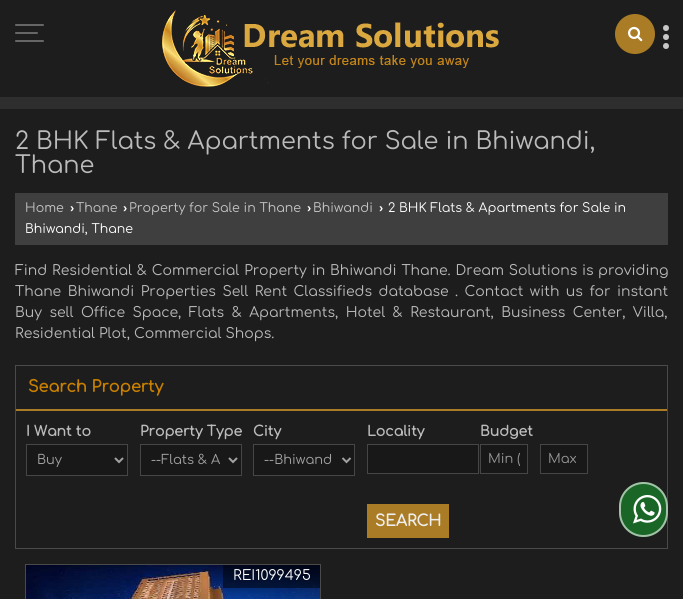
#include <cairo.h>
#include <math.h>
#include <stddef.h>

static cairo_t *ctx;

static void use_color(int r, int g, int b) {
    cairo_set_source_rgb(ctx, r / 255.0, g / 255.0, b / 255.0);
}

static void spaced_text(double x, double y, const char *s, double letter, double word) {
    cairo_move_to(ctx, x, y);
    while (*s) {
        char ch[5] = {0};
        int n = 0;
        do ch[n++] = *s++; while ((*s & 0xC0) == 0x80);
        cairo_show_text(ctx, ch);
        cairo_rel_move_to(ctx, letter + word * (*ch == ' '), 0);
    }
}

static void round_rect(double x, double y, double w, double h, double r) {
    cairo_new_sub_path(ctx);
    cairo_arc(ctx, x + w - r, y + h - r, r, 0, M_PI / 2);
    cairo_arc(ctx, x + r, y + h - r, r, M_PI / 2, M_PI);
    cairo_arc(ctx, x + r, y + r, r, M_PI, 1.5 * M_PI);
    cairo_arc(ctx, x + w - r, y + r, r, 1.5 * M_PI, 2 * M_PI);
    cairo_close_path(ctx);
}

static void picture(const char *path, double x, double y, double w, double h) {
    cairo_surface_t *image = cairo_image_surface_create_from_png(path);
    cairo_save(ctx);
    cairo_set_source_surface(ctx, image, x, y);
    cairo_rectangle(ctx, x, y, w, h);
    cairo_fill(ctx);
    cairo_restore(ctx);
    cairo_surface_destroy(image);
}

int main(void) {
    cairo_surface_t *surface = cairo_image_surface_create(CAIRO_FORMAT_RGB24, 683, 599);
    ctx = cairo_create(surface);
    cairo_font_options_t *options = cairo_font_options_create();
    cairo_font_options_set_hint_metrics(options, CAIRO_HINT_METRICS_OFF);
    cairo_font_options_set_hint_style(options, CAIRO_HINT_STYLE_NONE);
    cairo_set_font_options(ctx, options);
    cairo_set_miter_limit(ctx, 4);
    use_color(29, 29, 29);
    cairo_paint(ctx);
    picture("img1.png", 162, 10, 337, 77);
    use_color(171, 124, 38);
    cairo_arc(ctx, 635, 34, 20, 0, 2 * M_PI);
    cairo_fill(ctx);
    picture("img2.png", 628, 26, 15, 16);
    use_color(199, 199, 199);
    cairo_arc(ctx, 666, 37, 3, 0, 2 * M_PI);
    cairo_fill(ctx);
    cairo_arc(ctx, 666, 28, 3, 0, 2 * M_PI);
    cairo_fill(ctx);
    cairo_arc(ctx, 666, 46, 3, 0, 2 * M_PI);
    cairo_fill(ctx);
    use_color(46, 46, 46);
    cairo_rectangle(ctx, 0, 97, 683, 12);
    cairo_fill(ctx);
    use_color(102, 102, 102);
    round_rect(15, 24, 29, 2, 1);
    cairo_fill(ctx);
    round_rect(15, 32, 23, 2, 1);
    cairo_fill(ctx);
    round_rect(15, 40, 29, 2, 1);
    cairo_fill(ctx);
    cairo_select_font_face(ctx, "Comfortaa", CAIRO_FONT_SLANT_NORMAL, CAIRO_FONT_WEIGHT_NORMAL);
    cairo_set_font_size(ctx, 24);
    use_color(187, 187, 187);
    cairo_move_to(ctx, 15, 149);
    cairo_show_text(ctx, "2 BHK Flats & Apartments for Sale in Bhiwandi,");
    cairo_move_to(ctx, 15, 173);
    cairo_show_text(ctx, "Thane");
    use_color(63, 63, 63);
    cairo_rectangle(ctx, 15, 193, 653, 52);
    cairo_fill(ctx);
    cairo_set_font_size(ctx, 12.6);
    use_color(197, 197, 197);
    cairo_move_to(ctx, 25, 212);
    cairo_show_text(ctx, "Home");
    cairo_select_font_face(ctx, "Liberation Sans", CAIRO_FONT_SLANT_NORMAL, CAIRO_FONT_WEIGHT_BOLD);
    use_color(255, 255, 255);
    cairo_move_to(ctx, 70, 212);
    cairo_show_text(ctx, "›");
    cairo_select_font_face(ctx, "Comfortaa", CAIRO_FONT_SLANT_NORMAL, CAIRO_FONT_WEIGHT_NORMAL);
    use_color(197, 197, 197);
    cairo_move_to(ctx, 76, 212);
    cairo_show_text(ctx, "Thane");
    cairo_select_font_face(ctx, "Liberation Sans", CAIRO_FONT_SLANT_NORMAL, CAIRO_FONT_WEIGHT_BOLD);
    use_color(255, 255, 255);
    cairo_move_to(ctx, 123, 212);
    cairo_show_text(ctx, "›");
    cairo_select_font_face(ctx, "Comfortaa", CAIRO_FONT_SLANT_NORMAL, CAIRO_FONT_WEIGHT_NORMAL);
    use_color(197, 197, 197);
    cairo_move_to(ctx, 129, 212);
    cairo_show_text(ctx, "Property for Sale in Thane");
    cairo_select_font_face(ctx, "Liberation Sans", CAIRO_FONT_SLANT_NORMAL, CAIRO_FONT_WEIGHT_BOLD);
    use_color(255, 255, 255);
    cairo_move_to(ctx, 307, 212);
    cairo_show_text(ctx, "›");
    cairo_select_font_face(ctx, "Comfortaa", CAIRO_FONT_SLANT_NORMAL, CAIRO_FONT_WEIGHT_NORMAL);
    use_color(197, 197, 197);
    cairo_move_to(ctx, 313, 212);
    cairo_show_text(ctx, "Bhiwandi");
    cairo_select_font_face(ctx, "Liberation Sans", CAIRO_FONT_SLANT_NORMAL, CAIRO_FONT_WEIGHT_BOLD);
    use_color(255, 255, 255);
    cairo_move_to(ctx, 379, 212);
    cairo_show_text(ctx, "›");
    cairo_select_font_face(ctx, "Comfortaa", CAIRO_FONT_SLANT_NORMAL, CAIRO_FONT_WEIGHT_NORMAL);
    cairo_move_to(ctx, 388, 212);
    cairo_show_text(ctx, "2 BHK Flats & Apartments for Sale in");
    cairo_move_to(ctx, 25, 233);
    cairo_show_text(ctx, "Bhiwandi, Thane");
    cairo_set_font_size(ctx, 14);
    use_color(187, 187, 187);
    spaced_text(15, 275, "Find Residential & Commercial Property in Bhiwandi Thane. Dream Solutions is", 0, 0.75);
    cairo_move_to(ctx, 598, 275);
    cairo_show_text(ctx, "providing");
    spaced_text(15, 296, "Thane Bhiwandi Properties Sell Rent Classifieds database . Contact with us for instant", 0, 2.4);
    spaced_text(15, 317, "Buy sell Office Space, Flats & Apartments, Hotel & Restaurant, Business Center, Villa,", 0, 3.4);
    cairo_move_to(ctx, 15, 338);
    cairo_show_text(ctx, "Residential Plot, Commercial Shops.");
    cairo_rectangle(ctx, 15.5, 365.5, 652, 183);
    use_color(74, 74, 74);
    cairo_set_line_width(ctx, 1);
    cairo_stroke(ctx);
    use_color(171, 124, 38);
    cairo_rectangle(ctx, 16, 409, 651, 2);
    cairo_fill(ctx);
    cairo_select_font_face(ctx, "Comfortaa", CAIRO_FONT_SLANT_NORMAL, CAIRO_FONT_WEIGHT_BOLD);
    cairo_set_font_size(ctx, 16);
    use_color(200, 127, 0);
    cairo_move_to(ctx, 28, 392);
    cairo_show_text(ctx, "Search Property");
    cairo_set_font_size(ctx, 14);
    use_color(187, 187, 187);
    cairo_move_to(ctx, 26, 436);
    cairo_show_text(ctx, "I Want to");
    use_color(24, 24, 24);
    cairo_rectangle(ctx, 26.5, 444.5, 101, 31);
    cairo_fill_preserve(ctx);
    use_color(70, 70, 70);
    cairo_stroke(ctx);
    cairo_new_path(ctx);
    cairo_move_to(ctx, 115, 458);
    cairo_line_to(ctx, 119, 462);
    cairo_line_to(ctx, 123, 458);
    use_color(163, 163, 163);
    cairo_set_line_width(ctx, 2);
    cairo_stroke(ctx);
    cairo_select_font_face(ctx, "Comfortaa", CAIRO_FONT_SLANT_NORMAL, CAIRO_FONT_WEIGHT_NORMAL);
    cairo_set_font_size(ctx, 13);
    cairo_move_to(ctx, 37, 464);
    cairo_show_text(ctx, "Buy");
    cairo_select_font_face(ctx, "Comfortaa", CAIRO_FONT_SLANT_NORMAL, CAIRO_FONT_WEIGHT_BOLD);
    cairo_set_font_size(ctx, 14);
    use_color(187, 187, 187);
    cairo_move_to(ctx, 140, 436);
    cairo_show_text(ctx, "Property Type");
    use_color(24, 24, 24);
    cairo_rectangle(ctx, 140.5, 444.5, 101, 31);
    cairo_fill_preserve(ctx);
    use_color(70, 70, 70);
    cairo_set_line_width(ctx, 1);
    cairo_stroke(ctx);
    cairo_new_path(ctx);
    cairo_move_to(ctx, 229, 458);
    cairo_line_to(ctx, 233, 462);
    cairo_line_to(ctx, 237, 458);
    use_color(163, 163, 163);
    cairo_set_line_width(ctx, 2);
    cairo_stroke(ctx);
    cairo_select_font_face(ctx, "Comfortaa", CAIRO_FONT_SLANT_NORMAL, CAIRO_FONT_WEIGHT_NORMAL);
    cairo_set_font_size(ctx, 13);
    cairo_move_to(ctx, 151, 464);
    cairo_show_text(ctx, "--Flats & A");
    cairo_select_font_face(ctx, "Comfortaa", CAIRO_FONT_SLANT_NORMAL, CAIRO_FONT_WEIGHT_BOLD);
    cairo_set_font_size(ctx, 14);
    use_color(187, 187, 187);
    cairo_move_to(ctx, 253, 436);
    cairo_show_text(ctx, "City");
    use_color(24, 24, 24);
    cairo_rectangle(ctx, 253.5, 444.5, 101, 31);
    cairo_fill_preserve(ctx);
    use_color(70, 70, 70);
    cairo_set_line_width(ctx, 1);
    cairo_stroke(ctx);
    cairo_new_path(ctx);
    cairo_move_to(ctx, 342.5, 458);
    cairo_line_to(ctx, 346.5, 462);
    cairo_line_to(ctx, 350.5, 458);
    use_color(163, 163, 163);
    cairo_set_line_width(ctx, 2);
    cairo_stroke(ctx);
    cairo_select_font_face(ctx, "Comfortaa", CAIRO_FONT_SLANT_NORMAL, CAIRO_FONT_WEIGHT_NORMAL);
    cairo_set_font_size(ctx, 13);
    cairo_move_to(ctx, 264, 464);
    cairo_show_text(ctx, "--Bhiwand");
    cairo_select_font_face(ctx, "Comfortaa", CAIRO_FONT_SLANT_NORMAL, CAIRO_FONT_WEIGHT_BOLD);
    cairo_set_font_size(ctx, 14);
    use_color(187, 187, 187);
    cairo_move_to(ctx, 367, 436);
    cairo_show_text(ctx, "Locality");
    use_color(24, 24, 24);
    cairo_rectangle(ctx, 367.5, 444.5, 111, 29);
    cairo_fill_preserve(ctx);
    use_color(70, 70, 70);
    cairo_set_line_width(ctx, 1);
    cairo_stroke(ctx);
    use_color(187, 187, 187);
    cairo_move_to(ctx, 480, 436);
    cairo_show_text(ctx, "Budget");
    use_color(24, 24, 24);
    cairo_rectangle(ctx, 480.5, 444.5, 47, 29);
    cairo_fill_preserve(ctx);
    use_color(70, 70, 70);
    cairo_stroke(ctx);
    cairo_save(ctx);
    cairo_rectangle(ctx, 488, 452, 32, 14);
    cairo_clip(ctx);
    cairo_select_font_face(ctx, "Comfortaa", CAIRO_FONT_SLANT_NORMAL, CAIRO_FONT_WEIGHT_NORMAL);
    cairo_set_font_size(ctx, 13);
    use_color(153, 153, 153);
    cairo_move_to(ctx, 488, 463);
    cairo_show_text(ctx, "Min (");
    cairo_restore(ctx);
    use_color(24, 24, 24);
    cairo_rectangle(ctx, 540.5, 444.5, 47, 29);
    cairo_fill_preserve(ctx);
    use_color(70, 70, 70);
    cairo_stroke(ctx);
    cairo_select_font_face(ctx, "Comfortaa", CAIRO_FONT_SLANT_NORMAL, CAIRO_FONT_WEIGHT_NORMAL);
    cairo_set_font_size(ctx, 13);
    use_color(153, 153, 153);
    cairo_move_to(ctx, 548, 463);
    cairo_show_text(ctx, "Max");
    use_color(171, 124, 38);
    cairo_rectangle(ctx, 367, 504, 82, 34);
    cairo_fill(ctx);
    cairo_select_font_face(ctx, "Comfortaa", CAIRO_FONT_SLANT_NORMAL, CAIRO_FONT_WEIGHT_BOLD);
    cairo_set_font_size(ctx, 15.5);
    use_color(238, 238, 238);
    cairo_move_to(ctx, 375, 526);
    cairo_show_text(ctx, "SEARCH");
    cairo_rectangle(ctx, 25.5, 564.5, 295, 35);
    use_color(74, 74, 74);
    cairo_stroke(ctx);
    picture("img3.png", 26, 565, 294, 34);
    cairo_set_source_rgba(ctx, 0, 0, 0, 0.5);
    cairo_rectangle(ctx, 223, 565, 97, 23);
    cairo_fill(ctx);
    cairo_select_font_face(ctx, "Comfortaa", CAIRO_FONT_SLANT_NORMAL, CAIRO_FONT_WEIGHT_NORMAL);
    cairo_set_font_size(ctx, 14);
    use_color(255, 255, 255);
    cairo_move_to(ctx, 233, 580);
    cairo_show_text(ctx, "REI1099495");
    use_color(25, 102, 38);
    round_rect(619, 482, 49, 55, 24.5);
    cairo_fill(ctx);
    round_rect(620, 483, 47, 53, 23.5);
    cairo_set_source_rgba(ctx, 1, 1, 1, 0.6);
    cairo_set_line_width(ctx, 2);
    cairo_stroke(ctx);
    picture("img4.png", 633, 495, 29, 29);
    cairo_surface_write_to_png(surface, "result.png");
    cairo_font_options_destroy(options);
    cairo_destroy(ctx);
    cairo_surface_destroy(surface);
    return 0;
}
